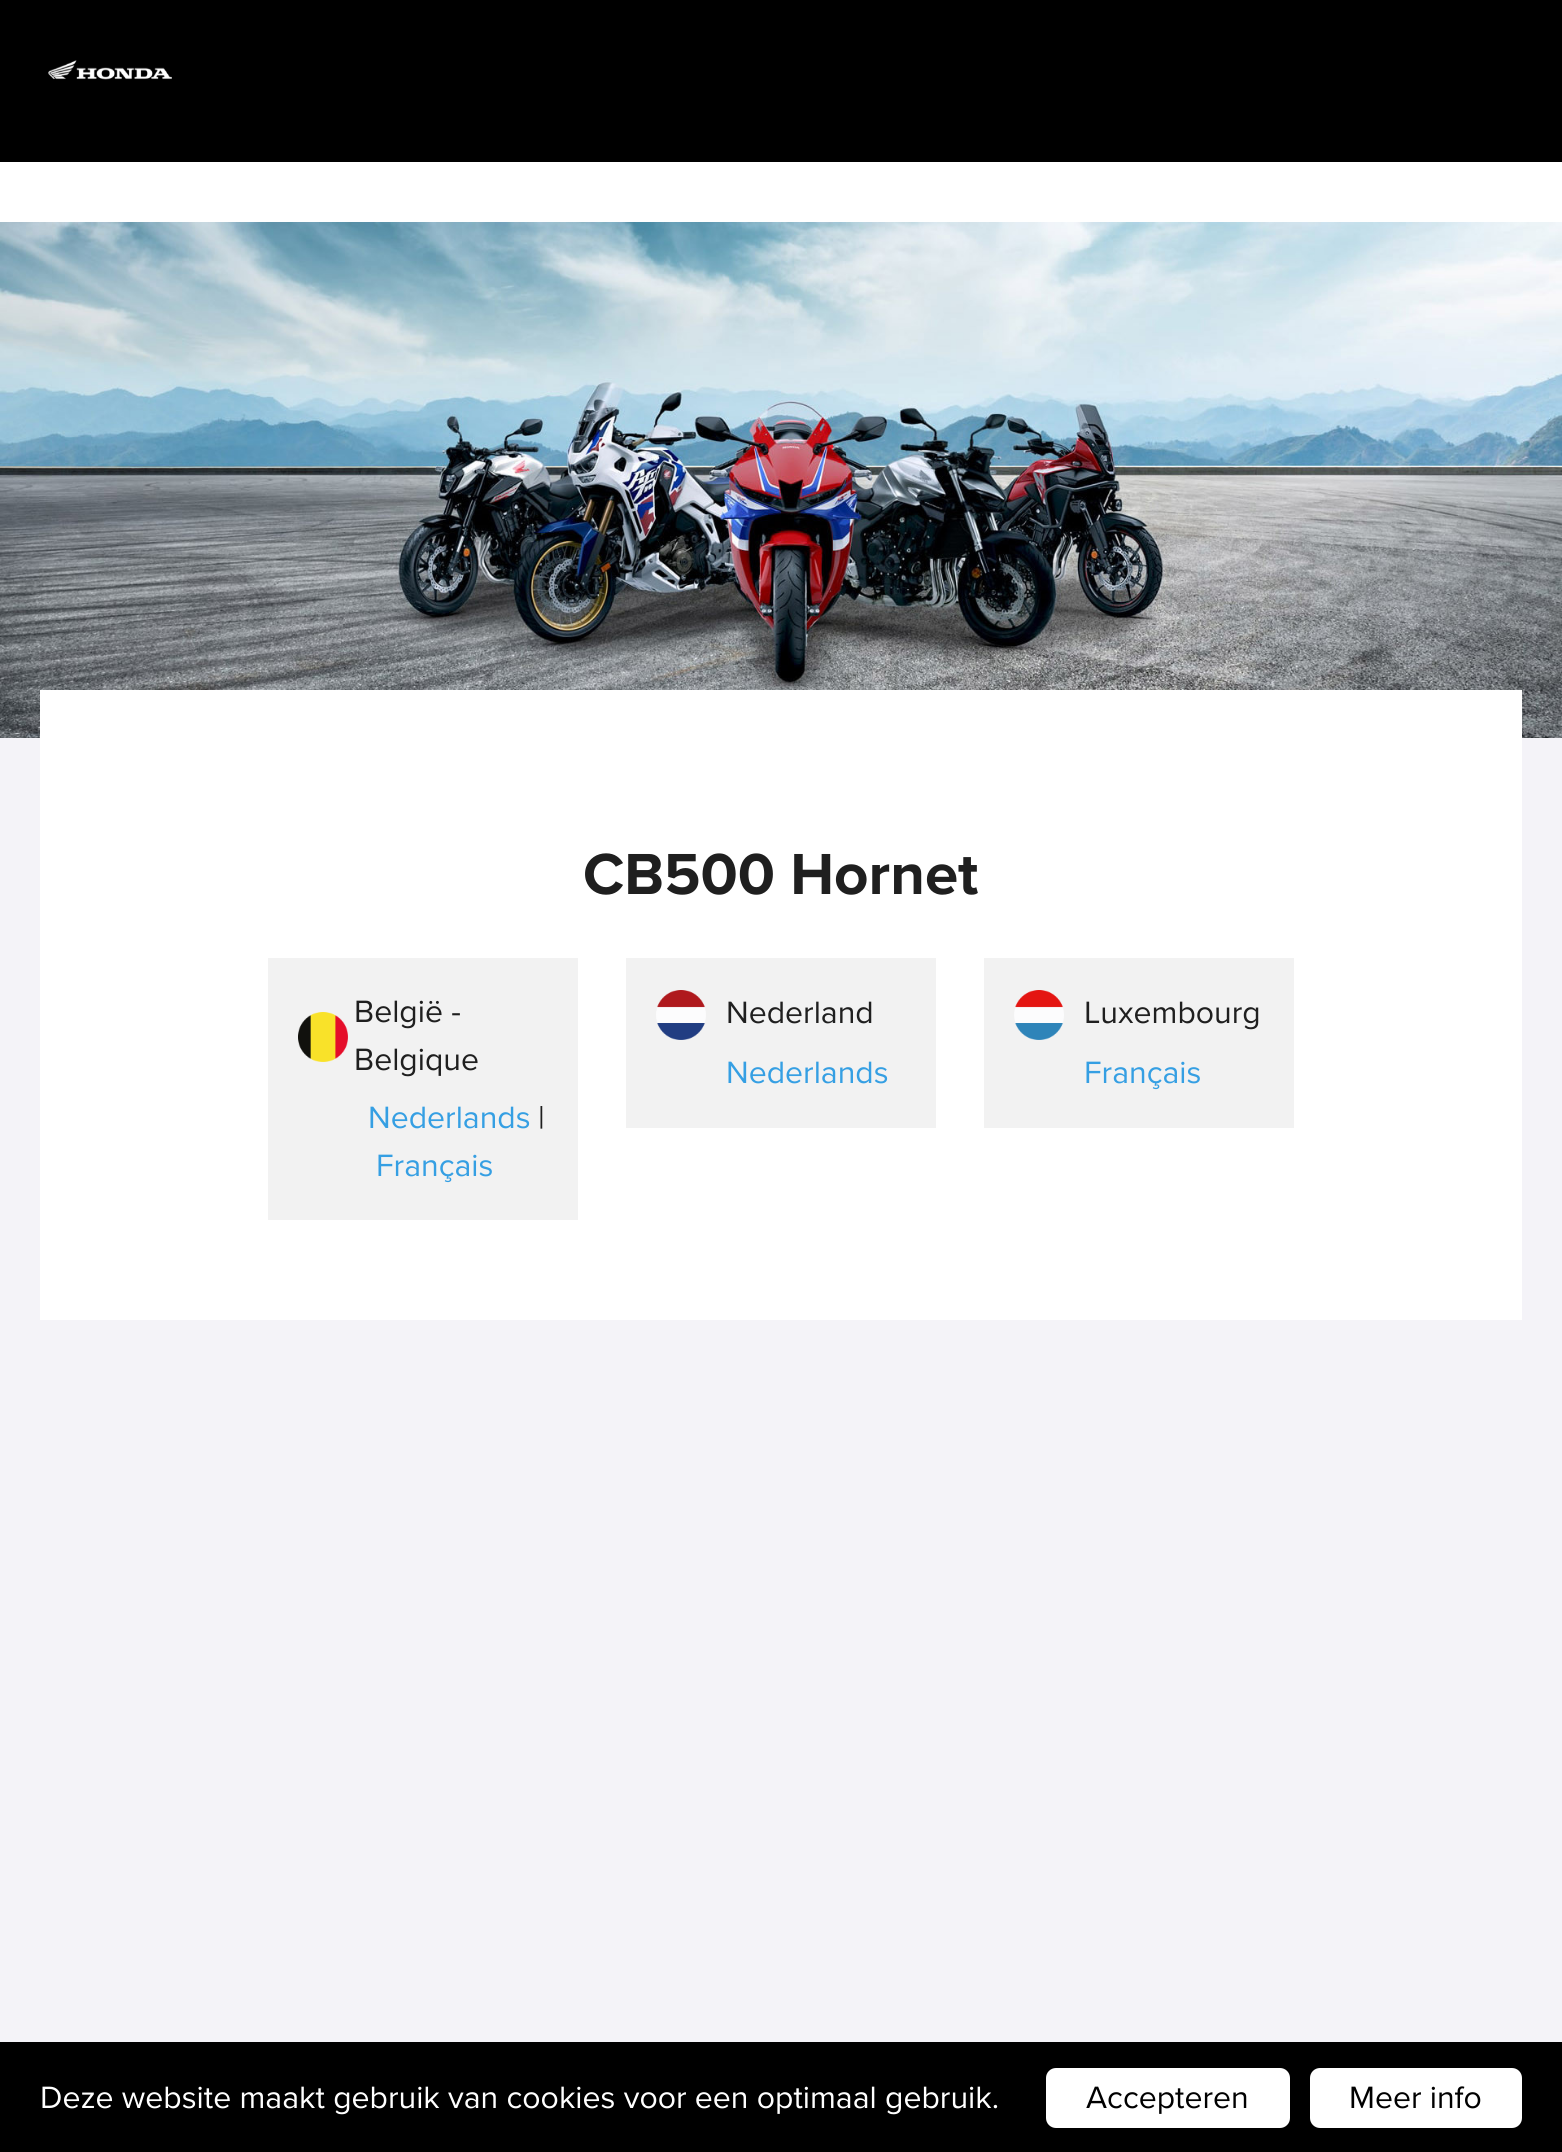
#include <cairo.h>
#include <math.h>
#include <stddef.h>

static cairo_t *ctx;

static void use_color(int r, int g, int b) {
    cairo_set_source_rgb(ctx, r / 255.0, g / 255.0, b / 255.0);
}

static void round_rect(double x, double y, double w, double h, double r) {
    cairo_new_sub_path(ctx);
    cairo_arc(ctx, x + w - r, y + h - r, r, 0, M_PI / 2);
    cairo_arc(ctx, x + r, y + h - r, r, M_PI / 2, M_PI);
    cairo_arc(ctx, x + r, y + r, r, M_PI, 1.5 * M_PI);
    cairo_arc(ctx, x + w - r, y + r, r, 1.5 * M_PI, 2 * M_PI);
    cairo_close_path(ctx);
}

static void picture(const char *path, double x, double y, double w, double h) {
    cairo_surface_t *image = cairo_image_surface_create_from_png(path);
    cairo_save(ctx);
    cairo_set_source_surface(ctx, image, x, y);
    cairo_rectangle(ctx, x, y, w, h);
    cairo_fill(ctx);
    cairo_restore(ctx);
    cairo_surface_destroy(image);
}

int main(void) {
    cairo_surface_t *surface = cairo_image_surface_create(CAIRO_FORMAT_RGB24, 1562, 2152);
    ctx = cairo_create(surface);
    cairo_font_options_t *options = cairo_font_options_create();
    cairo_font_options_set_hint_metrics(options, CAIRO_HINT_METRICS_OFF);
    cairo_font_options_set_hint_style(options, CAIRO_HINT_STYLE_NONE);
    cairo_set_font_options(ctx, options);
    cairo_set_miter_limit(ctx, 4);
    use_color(244, 243, 248);
    cairo_paint(ctx);
    use_color(0, 0, 0);
    cairo_rectangle(ctx, 0, 0, 1562, 162);
    cairo_fill(ctx);
    picture("img1.png", 48, 60, 124, 20);
    use_color(255, 255, 255);
    cairo_rectangle(ctx, 0, 162, 1562, 60);
    cairo_fill(ctx);
    picture("img2.png", 0, 222, 1562, 516);
    cairo_rectangle(ctx, 40, 690, 1482, 630);
    cairo_fill(ctx);
    cairo_select_font_face(ctx, "Proxima Nova", CAIRO_FONT_SLANT_NORMAL, CAIRO_FONT_WEIGHT_BOLD);
    cairo_set_font_size(ctx, 60);
    use_color(31, 31, 31);
    cairo_move_to(ctx, 583, 894);
    cairo_show_text(ctx, "CB500 Hornet");
    use_color(242, 242, 242);
    cairo_rectangle(ctx, 268, 958, 310, 262);
    cairo_fill(ctx);
    picture("img3.png", 298, 1012, 50, 50);
    cairo_select_font_face(ctx, "Proxima Nova", CAIRO_FONT_SLANT_NORMAL, CAIRO_FONT_WEIGHT_NORMAL);
    cairo_set_font_size(ctx, 32);
    use_color(31, 31, 31);
    cairo_move_to(ctx, 354, 1022);
    cairo_show_text(ctx, "België -");
    cairo_move_to(ctx, 354, 1070);
    cairo_show_text(ctx, "Belgique");
    use_color(53, 159, 227);
    cairo_move_to(ctx, 368, 1128);
    cairo_show_text(ctx, "Nederlands");
    use_color(31, 31, 31);
    cairo_move_to(ctx, 538, 1128);
    cairo_show_text(ctx, "|");
    use_color(53, 159, 227);
    cairo_move_to(ctx, 376, 1176);
    cairo_show_text(ctx, "Français");
    use_color(242, 242, 242);
    cairo_rectangle(ctx, 626, 958, 310, 170);
    cairo_fill(ctx);
    picture("img4.png", 656, 990, 50, 50);
    use_color(31, 31, 31);
    cairo_move_to(ctx, 726, 1023);
    cairo_show_text(ctx, "Nederland");
    use_color(53, 159, 227);
    cairo_move_to(ctx, 726, 1083);
    cairo_show_text(ctx, "Nederlands");
    use_color(242, 242, 242);
    cairo_rectangle(ctx, 984, 958, 310, 170);
    cairo_fill(ctx);
    picture("img5.png", 1014, 990, 50, 50);
    use_color(31, 31, 31);
    cairo_move_to(ctx, 1084, 1023);
    cairo_show_text(ctx, "Luxembourg");
    use_color(53, 159, 227);
    cairo_move_to(ctx, 1084, 1083);
    cairo_show_text(ctx, "Français");
    use_color(0, 0, 0);
    cairo_rectangle(ctx, 0, 2042, 1562, 110);
    cairo_fill(ctx);
    use_color(255, 255, 255);
    cairo_move_to(ctx, 40, 2108);
    cairo_show_text(ctx, "Deze website maakt gebruik van cookies voor een optimaal gebruik.");
    round_rect(1046, 2068, 244, 60, 10);
    cairo_fill(ctx);
    use_color(0, 0, 0);
    cairo_move_to(ctx, 1086, 2108);
    cairo_show_text(ctx, "Accepteren");
    use_color(255, 255, 255);
    round_rect(1310, 2068, 212, 60, 10);
    cairo_fill(ctx);
    use_color(0, 0, 0);
    cairo_move_to(ctx, 1349, 2108);
    cairo_show_text(ctx, "Meer info");
    cairo_surface_write_to_png(surface, "result.png");
    cairo_font_options_destroy(options);
    cairo_destroy(ctx);
    cairo_surface_destroy(surface);
    return 0;
}
